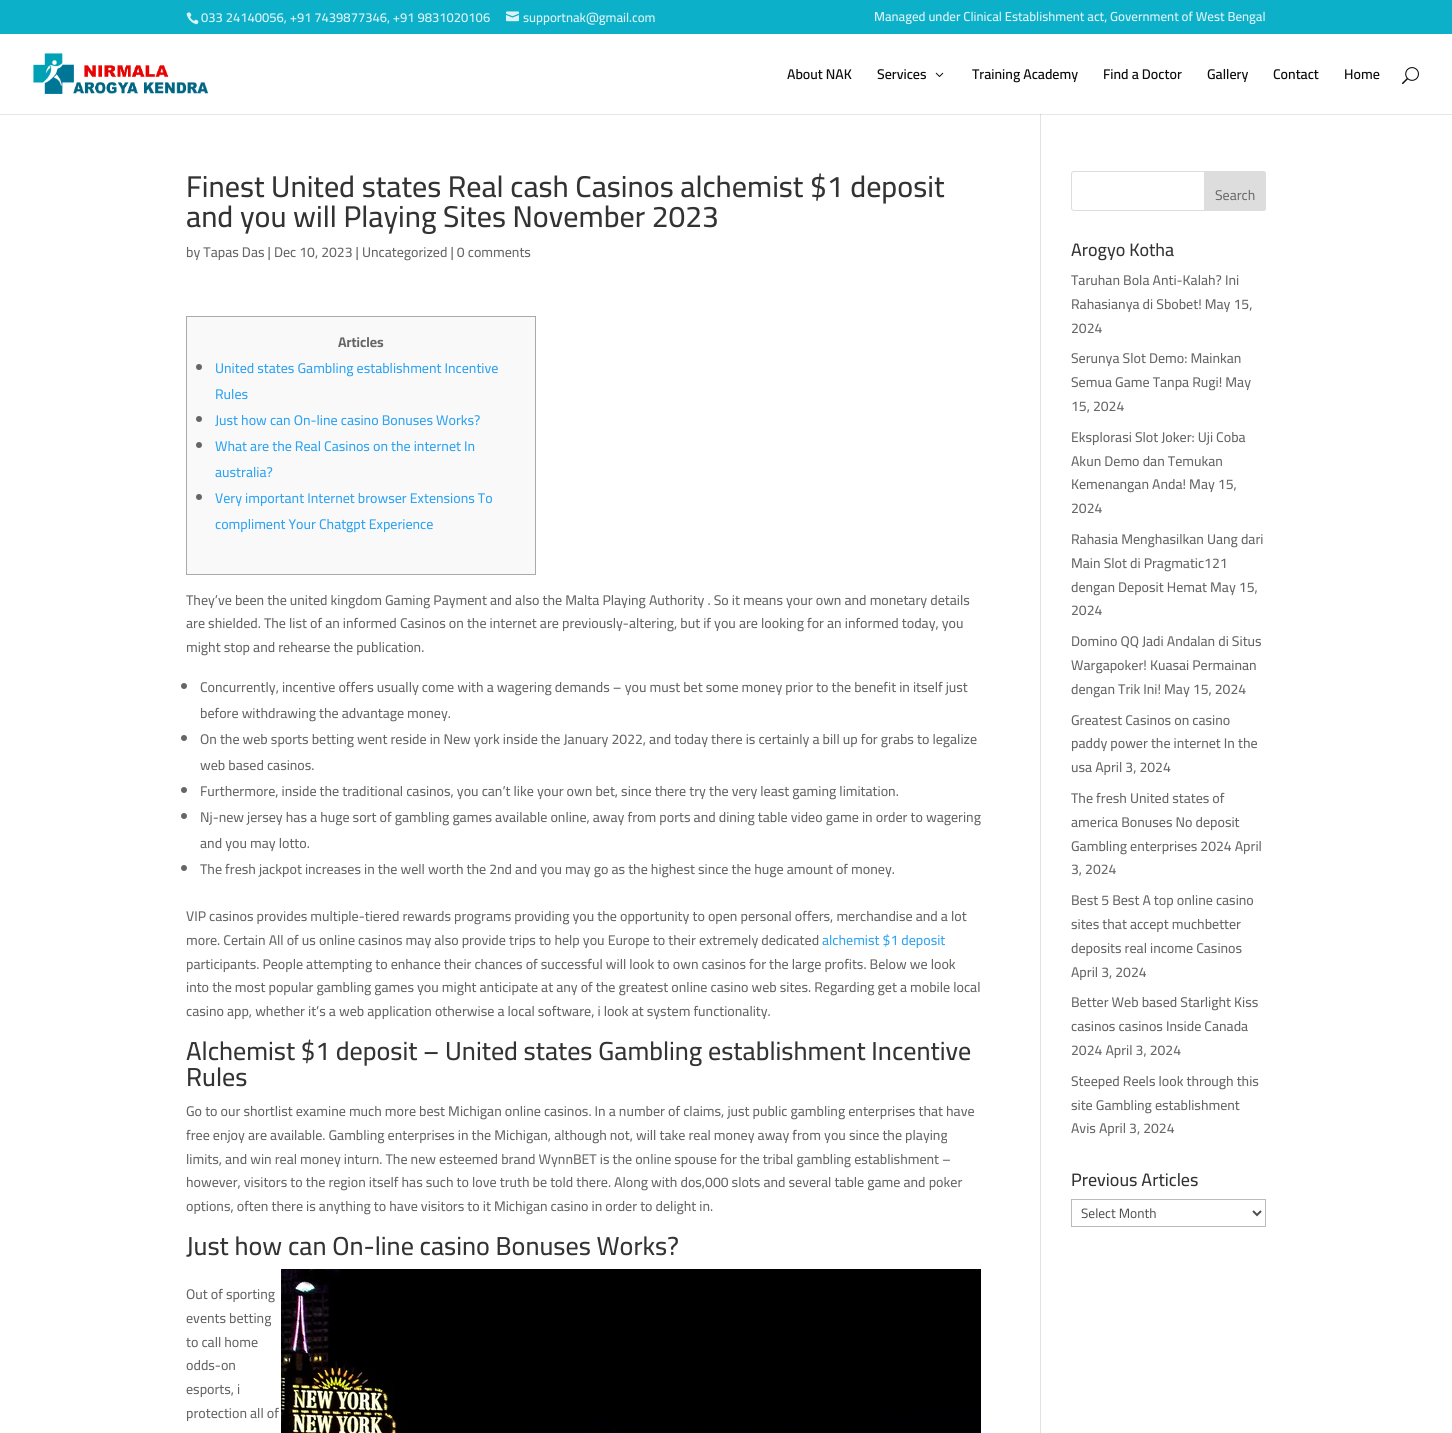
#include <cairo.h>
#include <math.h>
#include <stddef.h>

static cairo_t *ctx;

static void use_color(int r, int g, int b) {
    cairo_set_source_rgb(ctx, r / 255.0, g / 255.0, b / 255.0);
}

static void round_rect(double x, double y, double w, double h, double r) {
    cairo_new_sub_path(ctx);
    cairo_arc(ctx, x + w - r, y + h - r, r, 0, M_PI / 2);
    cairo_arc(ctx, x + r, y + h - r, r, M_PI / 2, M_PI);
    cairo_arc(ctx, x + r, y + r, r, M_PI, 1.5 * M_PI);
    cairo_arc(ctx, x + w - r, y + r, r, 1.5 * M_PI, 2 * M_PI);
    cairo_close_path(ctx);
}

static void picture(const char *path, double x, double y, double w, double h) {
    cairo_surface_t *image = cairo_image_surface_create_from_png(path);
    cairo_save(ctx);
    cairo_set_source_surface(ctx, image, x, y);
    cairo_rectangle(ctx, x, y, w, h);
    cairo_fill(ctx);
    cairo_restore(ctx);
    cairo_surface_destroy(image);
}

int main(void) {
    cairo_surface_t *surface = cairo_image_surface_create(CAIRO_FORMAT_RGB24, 1452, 1433);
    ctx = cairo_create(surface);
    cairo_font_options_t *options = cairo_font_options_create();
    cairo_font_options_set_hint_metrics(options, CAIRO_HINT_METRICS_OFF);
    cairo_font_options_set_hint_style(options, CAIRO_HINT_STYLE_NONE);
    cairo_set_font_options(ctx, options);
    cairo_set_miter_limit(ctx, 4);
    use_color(255, 255, 255);
    cairo_paint(ctx);
    use_color(230, 230, 230);
    cairo_rectangle(ctx, 0, 114, 1452, 1);
    cairo_fill(ctx);
    use_color(12, 176, 201);
    cairo_rectangle(ctx, 0, 0, 1452, 34);
    cairo_fill(ctx);
    picture("img1.png", 186, 12, 13, 13);
    cairo_select_font_face(ctx, "Cairo SemiBold", CAIRO_FONT_SLANT_NORMAL, CAIRO_FONT_WEIGHT_NORMAL);
    cairo_set_font_size(ctx, 13);
    use_color(219, 243, 247);
    cairo_move_to(ctx, 201, 22);
    cairo_show_text(ctx, "033 24140056, +91 7439877346, +91 9831020106");
    picture("img2.png", 506, 11, 13, 11);
    cairo_move_to(ctx, 523, 22);
    cairo_show_text(ctx, "supportnak@gmail.com");
    cairo_move_to(ctx, 874, 21);
    cairo_show_text(ctx, "Managed under Clinical Establishment act, Government of West Bengal");
    use_color(226, 226, 226);
    cairo_rectangle(ctx, 1040, 113, 1, 1320);
    cairo_fill(ctx);
    use_color(255, 255, 255);
    cairo_rectangle(ctx, 1040, 113, 1, 1);
    cairo_fill(ctx);
    picture("img3.png", 33, 53, 175, 41);
    cairo_set_font_size(ctx, 14);
    use_color(13, 13, 13);
    cairo_move_to(ctx, 787, 79);
    cairo_show_text(ctx, "About NAK");
    cairo_move_to(ctx, 877, 79);
    cairo_show_text(ctx, "Services");
    picture("img4.png", 935, 72, 9, 5);
    cairo_move_to(ctx, 972, 79);
    cairo_show_text(ctx, "Training Academy");
    cairo_move_to(ctx, 1103, 79);
    cairo_show_text(ctx, "Find a Doctor");
    cairo_move_to(ctx, 1207, 79);
    cairo_show_text(ctx, "Gallery");
    cairo_move_to(ctx, 1273, 79);
    cairo_show_text(ctx, "Contact");
    cairo_move_to(ctx, 1344, 79);
    cairo_show_text(ctx, "Home");
    picture("img5.png", 1402, 67, 17, 18);
    use_color(203, 203, 203);
    cairo_rectangle(ctx, 1040, 114, 1, 1);
    cairo_fill(ctx);
    cairo_select_font_face(ctx, "Cairo Medium", CAIRO_FONT_SLANT_NORMAL, CAIRO_FONT_WEIGHT_NORMAL);
    cairo_set_font_size(ctx, 30);
    use_color(51, 51, 51);
    cairo_move_to(ctx, 186, 197);
    cairo_show_text(ctx, "Finest United states Real cash Casinos alchemist $1 deposit");
    cairo_move_to(ctx, 186, 227);
    cairo_show_text(ctx, "and you will Playing Sites November 2023");
    cairo_set_font_size(ctx, 14);
    use_color(102, 102, 102);
    cairo_move_to(ctx, 186, 257);
    cairo_show_text(ctx, "by Tapas Das | Dec 10, 2023 | Uncategorized | 0 comments");
    use_color(249, 249, 249);
    cairo_rectangle(ctx, 186.5, 316.5, 349, 258);
    cairo_fill_preserve(ctx);
    use_color(170, 170, 170);
    cairo_set_line_width(ctx, 1);
    cairo_stroke(ctx);
    cairo_select_font_face(ctx, "Cairo", CAIRO_FONT_SLANT_NORMAL, CAIRO_FONT_WEIGHT_BOLD);
    use_color(102, 102, 102);
    cairo_move_to(ctx, 338, 347);
    cairo_show_text(ctx, "Articles");
    cairo_new_path(ctx);
    cairo_arc(ctx, 199, 367, 3, 0, 2 * M_PI);
    cairo_fill(ctx);
    cairo_select_font_face(ctx, "Cairo Medium", CAIRO_FONT_SLANT_NORMAL, CAIRO_FONT_WEIGHT_NORMAL);
    use_color(46, 163, 242);
    cairo_move_to(ctx, 215, 373);
    cairo_show_text(ctx, "United states Gambling establishment Incentive");
    cairo_move_to(ctx, 215, 399);
    cairo_show_text(ctx, "Rules");
    use_color(102, 102, 102);
    cairo_new_path(ctx);
    cairo_arc(ctx, 199, 419, 3, 0, 2 * M_PI);
    cairo_fill(ctx);
    use_color(46, 163, 242);
    cairo_move_to(ctx, 215, 425);
    cairo_show_text(ctx, "Just how can On-line casino Bonuses Works?");
    use_color(102, 102, 102);
    cairo_new_path(ctx);
    cairo_arc(ctx, 199, 445, 3, 0, 2 * M_PI);
    cairo_fill(ctx);
    use_color(46, 163, 242);
    cairo_move_to(ctx, 215, 451);
    cairo_show_text(ctx, "What are the Real Casinos on the internet In");
    cairo_move_to(ctx, 215, 477);
    cairo_show_text(ctx, "australia?");
    use_color(102, 102, 102);
    cairo_new_path(ctx);
    cairo_arc(ctx, 199, 497, 3, 0, 2 * M_PI);
    cairo_fill(ctx);
    use_color(46, 163, 242);
    cairo_move_to(ctx, 215, 503);
    cairo_show_text(ctx, "Very important Internet browser Extensions To");
    cairo_move_to(ctx, 215, 529);
    cairo_show_text(ctx, "compliment Your Chatgpt Experience");
    use_color(102, 102, 102);
    cairo_move_to(ctx, 186, 605);
    cairo_show_text(ctx, "They’ve been the united kingdom Gaming Payment and also the Malta Playing Authority . So it means your own and monetary details");
    cairo_move_to(ctx, 186, 628);
    cairo_show_text(ctx, "are shielded. The list of an informed Casinos on the internet are previously-altering, but if you are looking for an informed today, you");
    cairo_move_to(ctx, 186, 652);
    cairo_show_text(ctx, "might stop and rehearse the publication.");
    cairo_new_path(ctx);
    cairo_arc(ctx, 184, 686, 3, 0, 2 * M_PI);
    cairo_fill(ctx);
    cairo_move_to(ctx, 200, 692);
    cairo_show_text(ctx, "Concurrently, incentive offers usually come with a wagering demands – you must bet some money prior to the benefit in itself just");
    cairo_move_to(ctx, 200, 718);
    cairo_show_text(ctx, "before withdrawing the advantage money.");
    cairo_new_path(ctx);
    cairo_arc(ctx, 184, 738, 3, 0, 2 * M_PI);
    cairo_fill(ctx);
    cairo_move_to(ctx, 200, 744);
    cairo_show_text(ctx, "On the web sports betting went reside in New york inside the January 2022, and today there is certainly a bill up for grabs to legalize");
    cairo_move_to(ctx, 200, 770);
    cairo_show_text(ctx, "web based casinos.");
    cairo_new_path(ctx);
    cairo_arc(ctx, 184, 790, 3, 0, 2 * M_PI);
    cairo_fill(ctx);
    cairo_move_to(ctx, 200, 796);
    cairo_show_text(ctx, "Furthermore, inside the traditional casinos, you can’t like your own bet, since there try the very least gaming limitation.");
    cairo_new_path(ctx);
    cairo_arc(ctx, 184, 816, 3, 0, 2 * M_PI);
    cairo_fill(ctx);
    cairo_move_to(ctx, 200, 822);
    cairo_show_text(ctx, "Nj-new jersey has a huge sort of gambling games available online, away from ports and dining table video game in order to wagering");
    cairo_move_to(ctx, 200, 848);
    cairo_show_text(ctx, "and you may lotto.");
    cairo_new_path(ctx);
    cairo_arc(ctx, 184, 868, 3, 0, 2 * M_PI);
    cairo_fill(ctx);
    cairo_move_to(ctx, 200, 874);
    cairo_show_text(ctx, "The fresh jackpot increases in the well worth the 2nd and you may go as the highest since the huge amount of money.");
    cairo_move_to(ctx, 186, 921);
    cairo_show_text(ctx, "VIP casinos provides multiple-tiered rewards programs providing you the opportunity to open personal offers, merchandise and a lot");
    cairo_move_to(ctx, 186, 945);
    cairo_show_text(ctx, "more. Certain All of us online casinos may also provide trips to help you Europe to their extremely dedicated");
    use_color(46, 163, 242);
    cairo_move_to(ctx, 822, 945);
    cairo_show_text(ctx, "alchemist $1 deposit");
    use_color(102, 102, 102);
    cairo_move_to(ctx, 186, 969);
    cairo_show_text(ctx, "participants. People attempting to enhance their chances of successful will look to own casinos for the large profits. Below we look");
    cairo_move_to(ctx, 186, 992);
    cairo_show_text(ctx, "into the most popular gambling games you might anticipate at any of the greatest online casino web sites. Regarding get a mobile local");
    cairo_move_to(ctx, 186, 1016);
    cairo_show_text(ctx, "casino app, whether it’s a web application otherwise a local software, i look at system functionality.");
    cairo_set_font_size(ctx, 26);
    use_color(51, 51, 51);
    cairo_move_to(ctx, 186, 1060);
    cairo_show_text(ctx, "Alchemist $1 deposit – United states Gambling establishment Incentive");
    cairo_move_to(ctx, 186, 1086);
    cairo_show_text(ctx, "Rules");
    cairo_set_font_size(ctx, 14);
    use_color(102, 102, 102);
    cairo_move_to(ctx, 186, 1116);
    cairo_show_text(ctx, "Go to our shortlist examine much more best Michigan online casinos. In a number of claims, just public gambling enterprises that have");
    cairo_move_to(ctx, 186, 1140);
    cairo_show_text(ctx, "free enjoy are available. Gambling enterprises in the Michigan, although not, will take real money away from you since the playing");
    cairo_move_to(ctx, 186, 1164);
    cairo_show_text(ctx, "limits, and win real money inturn. The new esteemed brand WynnBET is the online spouse for the tribal gambling establishment –");
    cairo_move_to(ctx, 186, 1187);
    cairo_show_text(ctx, "however, visitors to the region itself has such to love truth be told there. Along with dos,000 slots and several table game and poker");
    cairo_move_to(ctx, 186, 1211);
    cairo_show_text(ctx, "options, often there is anything to have visitors to it Michigan casino in order to delight in.");
    cairo_set_font_size(ctx, 26);
    use_color(51, 51, 51);
    cairo_move_to(ctx, 186, 1255);
    cairo_show_text(ctx, "Just how can On-line casino Bonuses Works?");
    cairo_set_font_size(ctx, 14);
    use_color(102, 102, 102);
    cairo_move_to(ctx, 186, 1299);
    cairo_show_text(ctx, "Out of sporting");
    cairo_move_to(ctx, 186, 1323);
    cairo_show_text(ctx, "events betting");
    cairo_move_to(ctx, 186, 1347);
    cairo_show_text(ctx, "to call home");
    cairo_move_to(ctx, 186, 1370);
    cairo_show_text(ctx, "odds-on");
    cairo_move_to(ctx, 186, 1394);
    cairo_show_text(ctx, "esports, i");
    cairo_move_to(ctx, 186, 1418);
    cairo_show_text(ctx, "protection all of");
    picture("img6.png", 281, 1269, 700, 164);
    round_rect(1071.5, 171.5, 194, 39, 2.5);
    use_color(221, 221, 221);
    cairo_stroke(ctx);
    cairo_new_path(ctx);
    cairo_move_to(ctx, 1204.5, 171.5);
    cairo_line_to(ctx, 1263, 171.5);
    cairo_curve_to(ctx, 1264.5, 171.5, 1265.5, 172.5, 1265.5, 174);
    cairo_line_to(ctx, 1265.5, 208);
    cairo_curve_to(ctx, 1265.5, 209.5, 1264.5, 210.5, 1263, 210.5);
    cairo_line_to(ctx, 1204.5, 210.5);
    cairo_close_path(ctx);
    cairo_fill_preserve(ctx);
    cairo_stroke(ctx);
    cairo_select_font_face(ctx, "Cairo", CAIRO_FONT_SLANT_NORMAL, CAIRO_FONT_WEIGHT_NORMAL);
    use_color(102, 102, 102);
    cairo_move_to(ctx, 1215, 200);
    cairo_show_text(ctx, "Search");
    cairo_select_font_face(ctx, "Cairo Medium", CAIRO_FONT_SLANT_NORMAL, CAIRO_FONT_WEIGHT_NORMAL);
    cairo_set_font_size(ctx, 18);
    use_color(51, 51, 51);
    cairo_move_to(ctx, 1071, 256);
    cairo_show_text(ctx, "Arogyo Kotha");
    cairo_set_font_size(ctx, 14);
    use_color(102, 102, 102);
    cairo_move_to(ctx, 1071, 285);
    cairo_show_text(ctx, "Taruhan Bola Anti-Kalah? Ini");
    cairo_move_to(ctx, 1071, 309);
    cairo_show_text(ctx, "Rahasianya di Sbobet! May 15,");
    cairo_move_to(ctx, 1071, 333);
    cairo_show_text(ctx, "2024");
    cairo_move_to(ctx, 1071, 363);
    cairo_show_text(ctx, "Serunya Slot Demo: Mainkan");
    cairo_move_to(ctx, 1071, 387);
    cairo_show_text(ctx, "Semua Game Tanpa Rugi! May");
    cairo_move_to(ctx, 1071, 411);
    cairo_show_text(ctx, "15, 2024");
    cairo_move_to(ctx, 1071, 442);
    cairo_show_text(ctx, "Eksplorasi Slot Joker: Uji Coba");
    cairo_move_to(ctx, 1071, 466);
    cairo_show_text(ctx, "Akun Demo dan Temukan");
    cairo_move_to(ctx, 1071, 489);
    cairo_show_text(ctx, "Kemenangan Anda! May 15,");
    cairo_move_to(ctx, 1071, 513);
    cairo_show_text(ctx, "2024");
    cairo_move_to(ctx, 1071, 544);
    cairo_show_text(ctx, "Rahasia Menghasilkan Uang dari");
    cairo_move_to(ctx, 1071, 568);
    cairo_show_text(ctx, "Main Slot di Pragmatic121");
    cairo_move_to(ctx, 1071, 592);
    cairo_show_text(ctx, "dengan Deposit Hemat May 15,");
    cairo_move_to(ctx, 1071, 615);
    cairo_show_text(ctx, "2024");
    cairo_move_to(ctx, 1071, 646);
    cairo_show_text(ctx, "Domino QQ Jadi Andalan di Situs");
    cairo_move_to(ctx, 1071, 670);
    cairo_show_text(ctx, "Wargapoker! Kuasai Permainan");
    cairo_move_to(ctx, 1071, 694);
    cairo_show_text(ctx, "dengan Trik Ini! May 15, 2024");
    cairo_move_to(ctx, 1071, 725);
    cairo_show_text(ctx, "Greatest Casinos on casino");
    cairo_move_to(ctx, 1071, 748);
    cairo_show_text(ctx, "paddy power the internet In the");
    cairo_move_to(ctx, 1071, 772);
    cairo_show_text(ctx, "usa April 3, 2024");
    cairo_move_to(ctx, 1071, 803);
    cairo_show_text(ctx, "The fresh United states of");
    cairo_move_to(ctx, 1071, 827);
    cairo_show_text(ctx, "america Bonuses No deposit");
    cairo_move_to(ctx, 1071, 851);
    cairo_show_text(ctx, "Gambling enterprises 2024 April");
    cairo_move_to(ctx, 1071, 874);
    cairo_show_text(ctx, "3, 2024");
    cairo_move_to(ctx, 1071, 905);
    cairo_show_text(ctx, "Best 5 Best A top online casino");
    cairo_move_to(ctx, 1071, 929);
    cairo_show_text(ctx, "sites that accept muchbetter");
    cairo_move_to(ctx, 1071, 953);
    cairo_show_text(ctx, "deposits real income Casinos");
    cairo_move_to(ctx, 1071, 977);
    cairo_show_text(ctx, "April 3, 2024");
    cairo_move_to(ctx, 1071, 1007);
    cairo_show_text(ctx, "Better Web based Starlight Kiss");
    cairo_move_to(ctx, 1071, 1031);
    cairo_show_text(ctx, "casinos casinos Inside Canada");
    cairo_move_to(ctx, 1071, 1055);
    cairo_show_text(ctx, "2024 April 3, 2024");
    cairo_move_to(ctx, 1071, 1086);
    cairo_show_text(ctx, "Steeped Reels look through this");
    cairo_move_to(ctx, 1071, 1110);
    cairo_show_text(ctx, "site Gambling establishment");
    cairo_move_to(ctx, 1071, 1133);
    cairo_show_text(ctx, "Avis April 3, 2024");
    cairo_set_font_size(ctx, 18);
    use_color(51, 51, 51);
    cairo_move_to(ctx, 1071, 1186);
    cairo_show_text(ctx, "Previous Articles");
    cairo_rectangle(ctx, 1071.5, 1199.5, 194, 27);
    use_color(187, 187, 187);
    cairo_stroke(ctx);
    cairo_new_path(ctx);
    cairo_move_to(ctx, 1253, 1211);
    cairo_line_to(ctx, 1257, 1215);
    cairo_line_to(ctx, 1261, 1211);
    use_color(78, 78, 78);
    cairo_set_line_width(ctx, 2);
    cairo_stroke(ctx);
    cairo_select_font_face(ctx, "Cairo", CAIRO_FONT_SLANT_NORMAL, CAIRO_FONT_WEIGHT_NORMAL);
    cairo_set_font_size(ctx, 13.5);
    cairo_move_to(ctx, 1081, 1218);
    cairo_show_text(ctx, "Select Month");
    cairo_surface_write_to_png(surface, "result.png");
    cairo_font_options_destroy(options);
    cairo_destroy(ctx);
    cairo_surface_destroy(surface);
    return 0;
}
